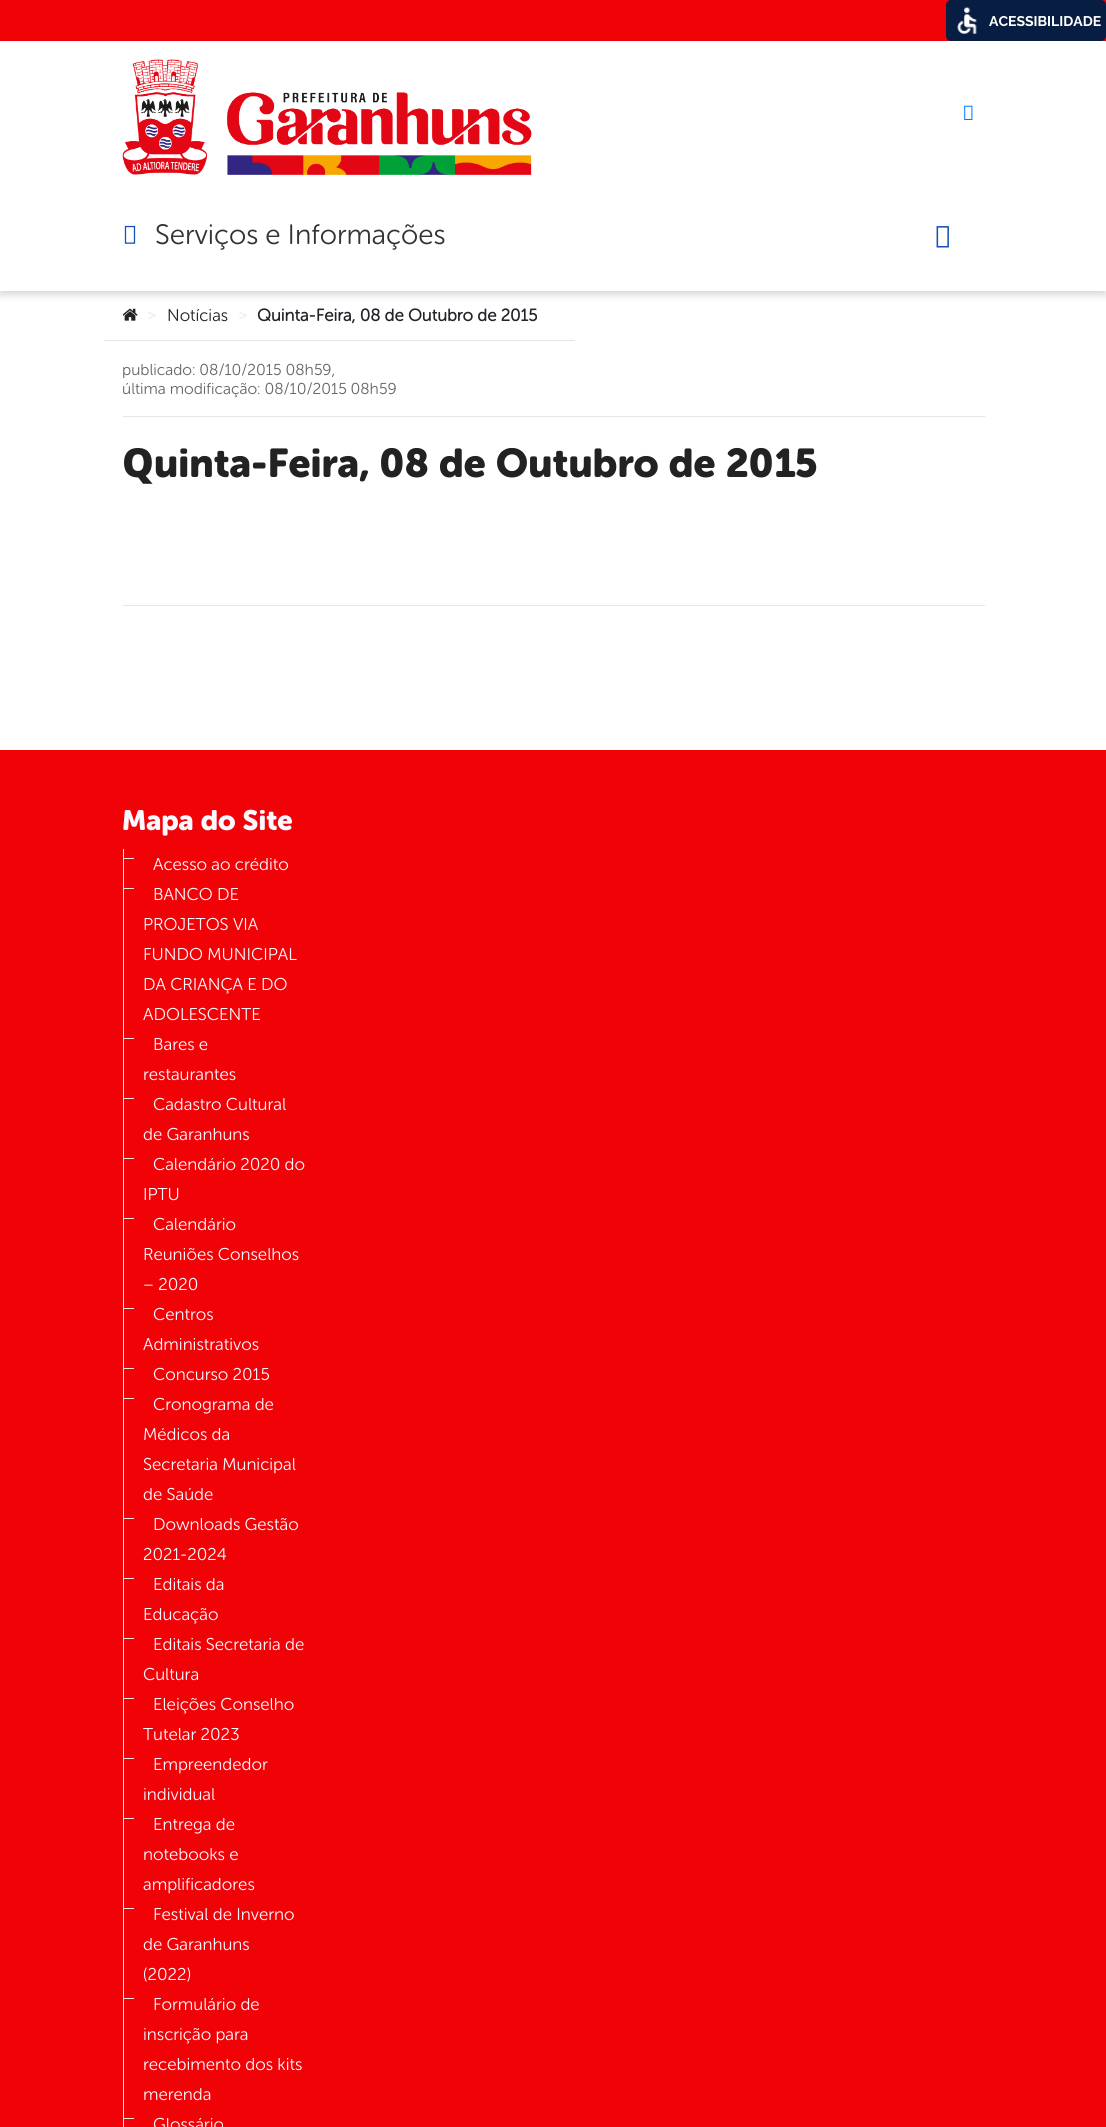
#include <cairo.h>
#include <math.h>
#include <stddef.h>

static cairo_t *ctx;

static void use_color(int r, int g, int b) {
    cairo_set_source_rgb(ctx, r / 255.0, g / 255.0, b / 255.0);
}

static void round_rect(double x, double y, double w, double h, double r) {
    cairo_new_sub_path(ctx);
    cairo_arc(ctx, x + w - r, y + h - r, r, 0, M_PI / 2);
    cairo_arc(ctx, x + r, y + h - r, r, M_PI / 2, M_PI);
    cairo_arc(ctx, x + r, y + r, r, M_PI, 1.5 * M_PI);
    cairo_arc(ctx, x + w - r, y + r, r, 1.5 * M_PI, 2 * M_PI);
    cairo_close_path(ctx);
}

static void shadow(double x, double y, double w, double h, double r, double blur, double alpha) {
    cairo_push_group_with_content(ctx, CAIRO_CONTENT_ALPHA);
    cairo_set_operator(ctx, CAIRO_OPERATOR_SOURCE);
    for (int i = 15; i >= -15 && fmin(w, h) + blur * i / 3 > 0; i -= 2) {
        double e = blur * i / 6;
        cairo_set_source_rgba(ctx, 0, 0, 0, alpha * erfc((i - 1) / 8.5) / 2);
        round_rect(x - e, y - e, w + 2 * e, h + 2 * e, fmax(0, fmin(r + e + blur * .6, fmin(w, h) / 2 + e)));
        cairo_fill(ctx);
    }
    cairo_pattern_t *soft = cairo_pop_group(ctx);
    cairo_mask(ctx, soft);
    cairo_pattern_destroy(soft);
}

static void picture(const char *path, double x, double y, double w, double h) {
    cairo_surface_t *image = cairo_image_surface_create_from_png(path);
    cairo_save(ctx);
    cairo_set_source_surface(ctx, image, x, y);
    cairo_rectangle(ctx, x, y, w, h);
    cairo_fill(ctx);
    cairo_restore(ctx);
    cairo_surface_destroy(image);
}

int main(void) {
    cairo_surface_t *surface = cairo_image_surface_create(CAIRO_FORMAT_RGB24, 1106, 2127);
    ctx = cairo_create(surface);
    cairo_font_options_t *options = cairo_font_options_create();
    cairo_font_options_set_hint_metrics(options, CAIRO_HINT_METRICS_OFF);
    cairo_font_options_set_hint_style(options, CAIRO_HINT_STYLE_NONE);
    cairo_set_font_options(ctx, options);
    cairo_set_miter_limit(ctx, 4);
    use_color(255, 255, 255);
    cairo_paint(ctx);
    use_color(240, 2, 6);
    cairo_rectangle(ctx, 0, 0, 1106, 41);
    cairo_fill(ctx);
    use_color(0, 0, 0);
    shadow(0, 45, 1106, 250, 0, 4, 0.16);
    use_color(7, 29, 65);
    round_rect(946, 0, 160, 41, 5);
    cairo_fill(ctx);
    picture("img1.png", 957, 7, 20, 27);
    cairo_select_font_face(ctx, "Raleway", CAIRO_FONT_SLANT_NORMAL, CAIRO_FONT_WEIGHT_BOLD);
    cairo_set_font_size(ctx, 14);
    use_color(255, 255, 255);
    cairo_move_to(ctx, 989, 26);
    cairo_show_text(ctx, "ACESSIBILIDADE");
    cairo_rectangle(ctx, 0, 41, 1106, 250);
    cairo_fill(ctx);
    picture("img2.png", 122, 59, 410, 116);
    picture("img3.png", 964, 105, 9, 15);
    picture("img4.png", 124, 225, 12, 19);
    cairo_select_font_face(ctx, "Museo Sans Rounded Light", CAIRO_FONT_SLANT_NORMAL, CAIRO_FONT_WEIGHT_NORMAL);
    cairo_set_font_size(ctx, 28);
    use_color(51, 51, 51);
    cairo_move_to(ctx, 155, 244);
    cairo_show_text(ctx, "Serviços e Informações");
    picture("img5.png", 936, 226, 13, 22);
    picture("img6.png", 123, 308, 15, 13);
    cairo_set_font_size(ctx, 16);
    use_color(229, 229, 229);
    cairo_move_to(ctx, 147, 320);
    cairo_show_text(ctx, ">");
    cairo_set_font_size(ctx, 17);
    use_color(34, 34, 34);
    cairo_move_to(ctx, 167, 321);
    cairo_show_text(ctx, "Notícias");
    cairo_set_font_size(ctx, 16);
    use_color(229, 229, 229);
    cairo_move_to(ctx, 238, 320);
    cairo_show_text(ctx, ">");
    cairo_select_font_face(ctx, "Museo Sans Rounded", CAIRO_FONT_SLANT_NORMAL, CAIRO_FONT_WEIGHT_BOLD);
    cairo_set_font_size(ctx, 17);
    use_color(33, 37, 41);
    cairo_move_to(ctx, 257, 321);
    cairo_show_text(ctx, "Quinta-Feira, 08 de Outubro de 2015");
    use_color(229, 229, 229);
    cairo_rectangle(ctx, 104, 340, 471, 1);
    cairo_fill(ctx);
    use_color(230, 230, 230);
    cairo_rectangle(ctx, 123, 416, 862, 1);
    cairo_fill(ctx);
    cairo_select_font_face(ctx, "Museo Sans Rounded Light", CAIRO_FONT_SLANT_NORMAL, CAIRO_FONT_WEIGHT_NORMAL);
    cairo_set_font_size(ctx, 15.75);
    use_color(102, 102, 102);
    cairo_move_to(ctx, 122, 375);
    cairo_show_text(ctx, "publicado: 08/10/2015 08h59,");
    cairo_move_to(ctx, 122, 394);
    cairo_show_text(ctx, "última modificação: 08/10/2015 08h59");
    cairo_select_font_face(ctx, "Noto Sans Black", CAIRO_FONT_SLANT_NORMAL, CAIRO_FONT_WEIGHT_NORMAL);
    cairo_set_font_size(ctx, 40);
    use_color(34, 34, 34);
    cairo_move_to(ctx, 122, 477);
    cairo_show_text(ctx, "Q");
    cairo_select_font_face(ctx, "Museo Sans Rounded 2", CAIRO_FONT_SLANT_NORMAL, CAIRO_FONT_WEIGHT_BOLD);
    cairo_move_to(ctx, 154, 477);
    cairo_show_text(ctx, "uinta-Feira, 08 de Outubro de 2015");
    use_color(230, 230, 230);
    cairo_rectangle(ctx, 123, 605, 862, 1);
    cairo_fill(ctx);
    use_color(240, 2, 6);
    cairo_rectangle(ctx, 0, 750, 1106, 1377);
    cairo_fill(ctx);
    cairo_set_font_size(ctx, 28);
    use_color(249, 249, 255);
    cairo_move_to(ctx, 122, 830);
    cairo_show_text(ctx, "Mapa do Site");
    use_color(232, 232, 232);
    cairo_rectangle(ctx, 123, 849, 1, 1278);
    cairo_fill(ctx);
    cairo_rectangle(ctx, 124, 858, 10, 1);
    cairo_fill(ctx);
    cairo_select_font_face(ctx, "Museo Sans Rounded Light", CAIRO_FONT_SLANT_NORMAL, CAIRO_FONT_WEIGHT_NORMAL);
    cairo_set_font_size(ctx, 17.1);
    use_color(249, 249, 255);
    cairo_move_to(ctx, 153, 870);
    cairo_show_text(ctx, "Acesso ao crédito");
    use_color(232, 232, 232);
    cairo_rectangle(ctx, 124, 888, 10, 1);
    cairo_fill(ctx);
    use_color(249, 249, 255);
    cairo_move_to(ctx, 153, 900);
    cairo_show_text(ctx, "BANCO DE");
    cairo_move_to(ctx, 143, 930);
    cairo_show_text(ctx, "PROJETOS VIA");
    cairo_move_to(ctx, 143, 960);
    cairo_show_text(ctx, "FUNDO MUNICIPAL");
    cairo_move_to(ctx, 143, 990);
    cairo_show_text(ctx, "DA CRIANÇA E DO");
    cairo_move_to(ctx, 143, 1020);
    cairo_show_text(ctx, "ADOLESCENTE");
    use_color(232, 232, 232);
    cairo_rectangle(ctx, 124, 1038, 10, 1);
    cairo_fill(ctx);
    use_color(249, 249, 255);
    cairo_move_to(ctx, 153, 1050);
    cairo_show_text(ctx, "Bares e");
    cairo_move_to(ctx, 143, 1080);
    cairo_show_text(ctx, "restaurantes");
    use_color(232, 232, 232);
    cairo_rectangle(ctx, 124, 1098, 10, 1);
    cairo_fill(ctx);
    use_color(249, 249, 255);
    cairo_move_to(ctx, 153, 1110);
    cairo_show_text(ctx, "Cadastro Cultural");
    cairo_move_to(ctx, 143, 1140);
    cairo_show_text(ctx, "de Garanhuns");
    use_color(232, 232, 232);
    cairo_rectangle(ctx, 124, 1158, 10, 1);
    cairo_fill(ctx);
    use_color(249, 249, 255);
    cairo_move_to(ctx, 153, 1170);
    cairo_show_text(ctx, "Calendário 2020 do");
    cairo_move_to(ctx, 143, 1200);
    cairo_show_text(ctx, "IPTU");
    use_color(232, 232, 232);
    cairo_rectangle(ctx, 124, 1218, 10, 1);
    cairo_fill(ctx);
    use_color(249, 249, 255);
    cairo_move_to(ctx, 153, 1230);
    cairo_show_text(ctx, "Calendário");
    cairo_move_to(ctx, 143, 1260);
    cairo_show_text(ctx, "Reuniões Conselhos");
    cairo_move_to(ctx, 143, 1290);
    cairo_show_text(ctx, "– 2020");
    use_color(232, 232, 232);
    cairo_rectangle(ctx, 124, 1308, 10, 1);
    cairo_fill(ctx);
    use_color(249, 249, 255);
    cairo_move_to(ctx, 153, 1320);
    cairo_show_text(ctx, "Centros");
    cairo_move_to(ctx, 143, 1350);
    cairo_show_text(ctx, "Administrativos");
    use_color(232, 232, 232);
    cairo_rectangle(ctx, 124, 1368, 10, 1);
    cairo_fill(ctx);
    use_color(249, 249, 255);
    cairo_move_to(ctx, 153, 1380);
    cairo_show_text(ctx, "Concurso 2015");
    use_color(232, 232, 232);
    cairo_rectangle(ctx, 124, 1398, 10, 1);
    cairo_fill(ctx);
    use_color(249, 249, 255);
    cairo_move_to(ctx, 153, 1410);
    cairo_show_text(ctx, "Cronograma de");
    cairo_move_to(ctx, 143, 1440);
    cairo_show_text(ctx, "Médicos da");
    cairo_move_to(ctx, 143, 1470);
    cairo_show_text(ctx, "Secretaria Municipal");
    cairo_move_to(ctx, 143, 1500);
    cairo_show_text(ctx, "de Saúde");
    use_color(232, 232, 232);
    cairo_rectangle(ctx, 124, 1518, 10, 1);
    cairo_fill(ctx);
    use_color(249, 249, 255);
    cairo_move_to(ctx, 153, 1530);
    cairo_show_text(ctx, "Downloads Gestão");
    cairo_move_to(ctx, 143, 1560);
    cairo_show_text(ctx, "2021-2024");
    use_color(232, 232, 232);
    cairo_rectangle(ctx, 124, 1578, 10, 1);
    cairo_fill(ctx);
    use_color(249, 249, 255);
    cairo_move_to(ctx, 153, 1590);
    cairo_show_text(ctx, "Editais da");
    cairo_move_to(ctx, 143, 1620);
    cairo_show_text(ctx, "Educação");
    use_color(232, 232, 232);
    cairo_rectangle(ctx, 124, 1638, 10, 1);
    cairo_fill(ctx);
    use_color(249, 249, 255);
    cairo_move_to(ctx, 153, 1650);
    cairo_show_text(ctx, "Editais Secretaria de");
    cairo_move_to(ctx, 143, 1680);
    cairo_show_text(ctx, "Cultura");
    use_color(232, 232, 232);
    cairo_rectangle(ctx, 124, 1698, 10, 1);
    cairo_fill(ctx);
    use_color(249, 249, 255);
    cairo_move_to(ctx, 153, 1710);
    cairo_show_text(ctx, "Eleições Conselho");
    cairo_move_to(ctx, 143, 1740);
    cairo_show_text(ctx, "Tutelar 2023");
    use_color(232, 232, 232);
    cairo_rectangle(ctx, 124, 1758, 10, 1);
    cairo_fill(ctx);
    use_color(249, 249, 255);
    cairo_move_to(ctx, 153, 1770);
    cairo_show_text(ctx, "Empreendedor");
    cairo_move_to(ctx, 143, 1800);
    cairo_show_text(ctx, "individual");
    use_color(232, 232, 232);
    cairo_rectangle(ctx, 124, 1818, 10, 1);
    cairo_fill(ctx);
    use_color(249, 249, 255);
    cairo_move_to(ctx, 153, 1830);
    cairo_show_text(ctx, "Entrega de");
    cairo_move_to(ctx, 143, 1860);
    cairo_show_text(ctx, "notebooks e");
    cairo_move_to(ctx, 143, 1890);
    cairo_show_text(ctx, "amplificadores");
    use_color(232, 232, 232);
    cairo_rectangle(ctx, 124, 1908, 10, 1);
    cairo_fill(ctx);
    use_color(249, 249, 255);
    cairo_move_to(ctx, 153, 1920);
    cairo_show_text(ctx, "Festival de Inverno");
    cairo_move_to(ctx, 143, 1950);
    cairo_show_text(ctx, "de Garanhuns");
    cairo_move_to(ctx, 143, 1980);
    cairo_show_text(ctx, "(2022)");
    use_color(232, 232, 232);
    cairo_rectangle(ctx, 124, 1998, 10, 1);
    cairo_fill(ctx);
    use_color(249, 249, 255);
    cairo_move_to(ctx, 153, 2010);
    cairo_show_text(ctx, "Formulário de");
    cairo_move_to(ctx, 143, 2040);
    cairo_show_text(ctx, "inscrição para");
    cairo_move_to(ctx, 143, 2070);
    cairo_show_text(ctx, "recebimento dos kits");
    cairo_move_to(ctx, 143, 2100);
    cairo_show_text(ctx, "merenda");
    use_color(232, 232, 232);
    cairo_rectangle(ctx, 124, 2118, 10, 1);
    cairo_fill(ctx);
    use_color(249, 249, 255);
    cairo_move_to(ctx, 153, 2130);
    cairo_show_text(ctx, "Glossário");
    cairo_surface_write_to_png(surface, "result.png");
    cairo_font_options_destroy(options);
    cairo_destroy(ctx);
    cairo_surface_destroy(surface);
    return 0;
}
